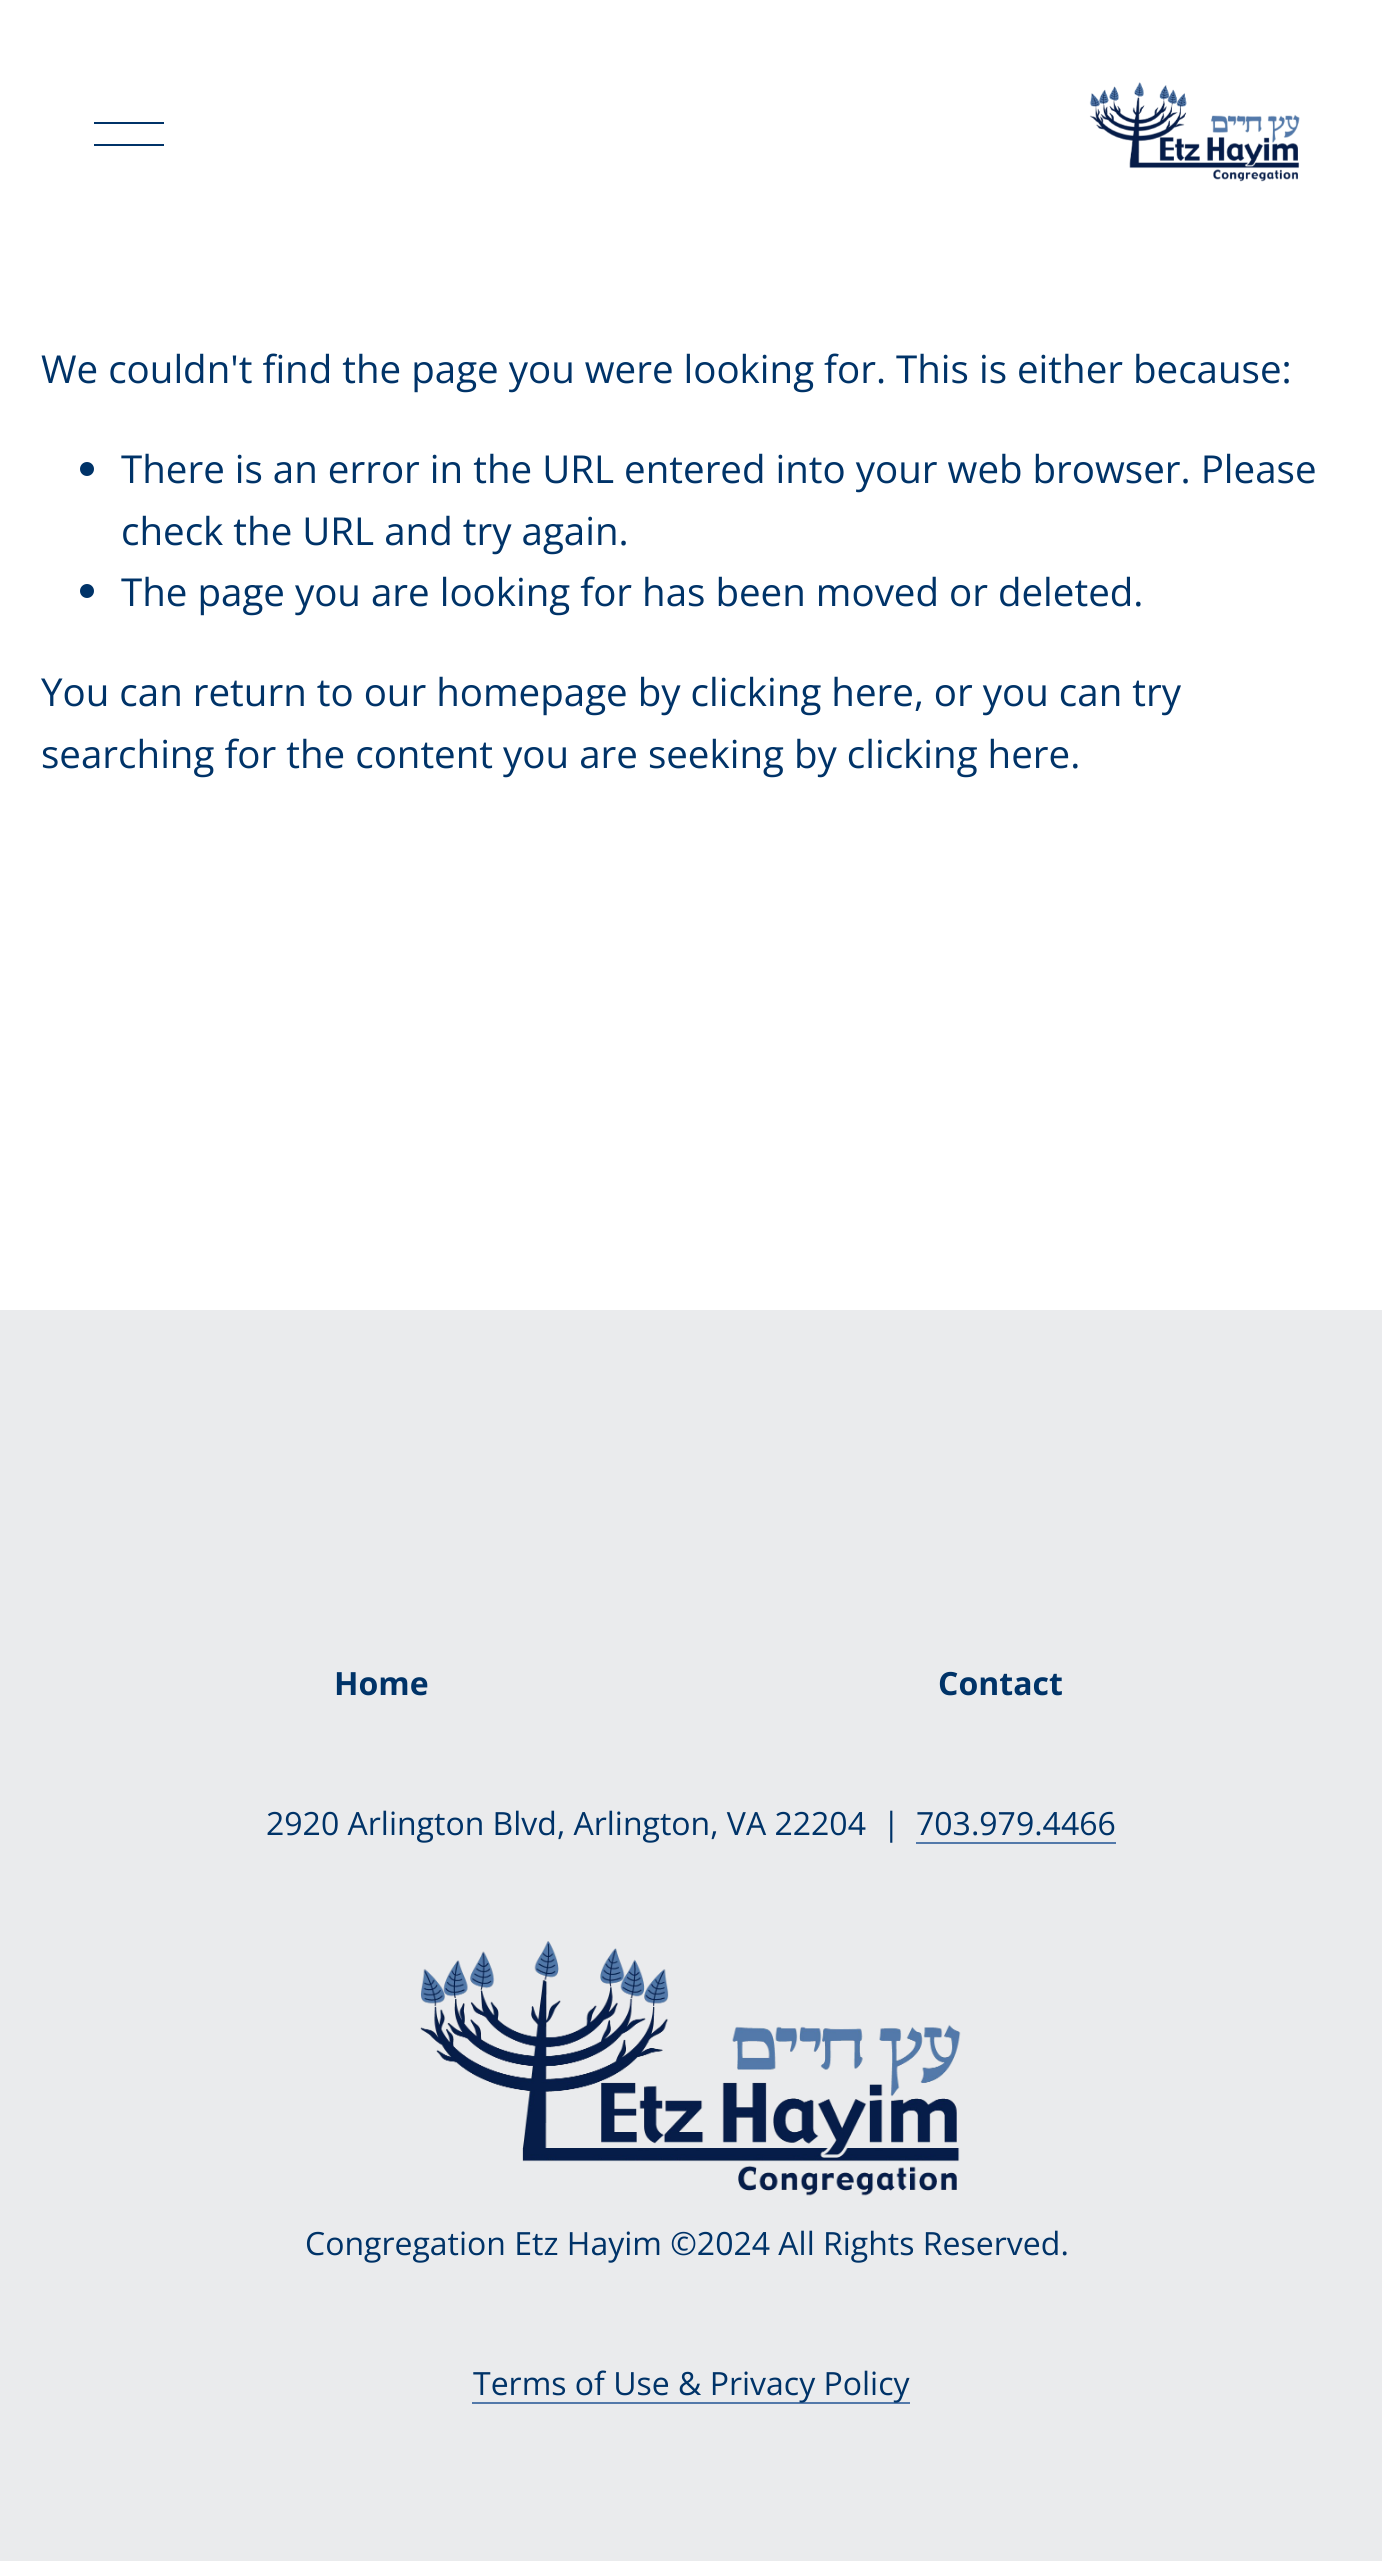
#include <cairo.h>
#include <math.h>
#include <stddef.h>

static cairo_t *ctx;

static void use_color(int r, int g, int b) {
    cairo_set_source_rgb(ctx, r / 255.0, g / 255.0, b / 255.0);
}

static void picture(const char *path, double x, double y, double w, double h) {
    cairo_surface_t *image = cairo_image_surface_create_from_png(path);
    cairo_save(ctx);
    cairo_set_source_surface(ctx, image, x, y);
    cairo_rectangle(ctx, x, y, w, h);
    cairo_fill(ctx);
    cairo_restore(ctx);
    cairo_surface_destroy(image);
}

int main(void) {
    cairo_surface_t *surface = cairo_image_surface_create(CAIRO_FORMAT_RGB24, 1382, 2561);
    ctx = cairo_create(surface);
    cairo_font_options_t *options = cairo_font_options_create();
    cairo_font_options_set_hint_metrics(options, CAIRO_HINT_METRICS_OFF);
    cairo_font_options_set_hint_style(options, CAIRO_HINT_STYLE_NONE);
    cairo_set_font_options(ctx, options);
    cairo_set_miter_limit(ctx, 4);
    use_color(255, 255, 255);
    cairo_paint(ctx);
    use_color(0, 51, 104);
    cairo_rectangle(ctx, 94, 122, 70, 2);
    cairo_fill(ctx);
    cairo_rectangle(ctx, 94, 144, 70, 2);
    cairo_fill(ctx);
    picture("img1.png", 1089, 82, 211, 100);
    cairo_select_font_face(ctx, "Open Sans", CAIRO_FONT_SLANT_NORMAL, CAIRO_FONT_WEIGHT_NORMAL);
    cairo_set_font_size(ctx, 38.5);
    cairo_move_to(ctx, 41, 383);
    cairo_show_text(ctx, "We couldn't find the page you were looking for. This is either because:");
    cairo_new_path(ctx);
    cairo_arc(ctx, 87, 469, 7, 0, 2 * M_PI);
    cairo_fill(ctx);
    cairo_move_to(ctx, 121, 483);
    cairo_show_text(ctx, "There is an error in the URL entered into your web browser. Please");
    cairo_move_to(ctx, 121, 545);
    cairo_show_text(ctx, "check the URL and try again.");
    cairo_new_path(ctx);
    cairo_arc(ctx, 87, 591, 7, 0, 2 * M_PI);
    cairo_fill(ctx);
    cairo_move_to(ctx, 121, 606);
    cairo_show_text(ctx, "The page you are looking for has been moved or deleted.");
    cairo_move_to(ctx, 41, 706);
    cairo_show_text(ctx, "You can return to our homepage by clicking here, or you can try");
    cairo_move_to(ctx, 41, 768);
    cairo_show_text(ctx, "searching for the content you are seeking by clicking here.");
    use_color(234, 235, 237);
    cairo_rectangle(ctx, 0, 1310, 1382, 1251);
    cairo_fill(ctx);
    cairo_select_font_face(ctx, "Open Sans", CAIRO_FONT_SLANT_NORMAL, CAIRO_FONT_WEIGHT_BOLD);
    cairo_set_font_size(ctx, 32);
    use_color(0, 51, 104);
    cairo_move_to(ctx, 334, 1695);
    cairo_show_text(ctx, "Home");
    cairo_move_to(ctx, 938, 1695);
    cairo_show_text(ctx, "Contact");
    cairo_select_font_face(ctx, "Open Sans", CAIRO_FONT_SLANT_NORMAL, CAIRO_FONT_WEIGHT_NORMAL);
    cairo_move_to(ctx, 266, 1835);
    cairo_show_text(ctx, "2920 Arlington Blvd, Arlington, VA 22204  |");
    cairo_move_to(ctx, 916, 1835);
    cairo_show_text(ctx, "703.979.4466");
    use_color(83, 121, 170);
    cairo_rectangle(ctx, 916, 1842, 200, 2);
    cairo_fill(ctx);
    picture("img2.png", 420, 1941, 541, 255);
    use_color(0, 51, 104);
    cairo_move_to(ctx, 305, 2255);
    cairo_show_text(ctx, "Congregation Etz Hayim ©2024 All Rights Reserved.");
    use_color(83, 121, 170);
    cairo_rectangle(ctx, 472, 2402, 438, 2);
    cairo_fill(ctx);
    use_color(0, 51, 104);
    cairo_move_to(ctx, 473, 2395);
    cairo_show_text(ctx, "Terms of Use & Privacy Policy");
    cairo_surface_write_to_png(surface, "result.png");
    cairo_font_options_destroy(options);
    cairo_destroy(ctx);
    cairo_surface_destroy(surface);
    return 0;
}
